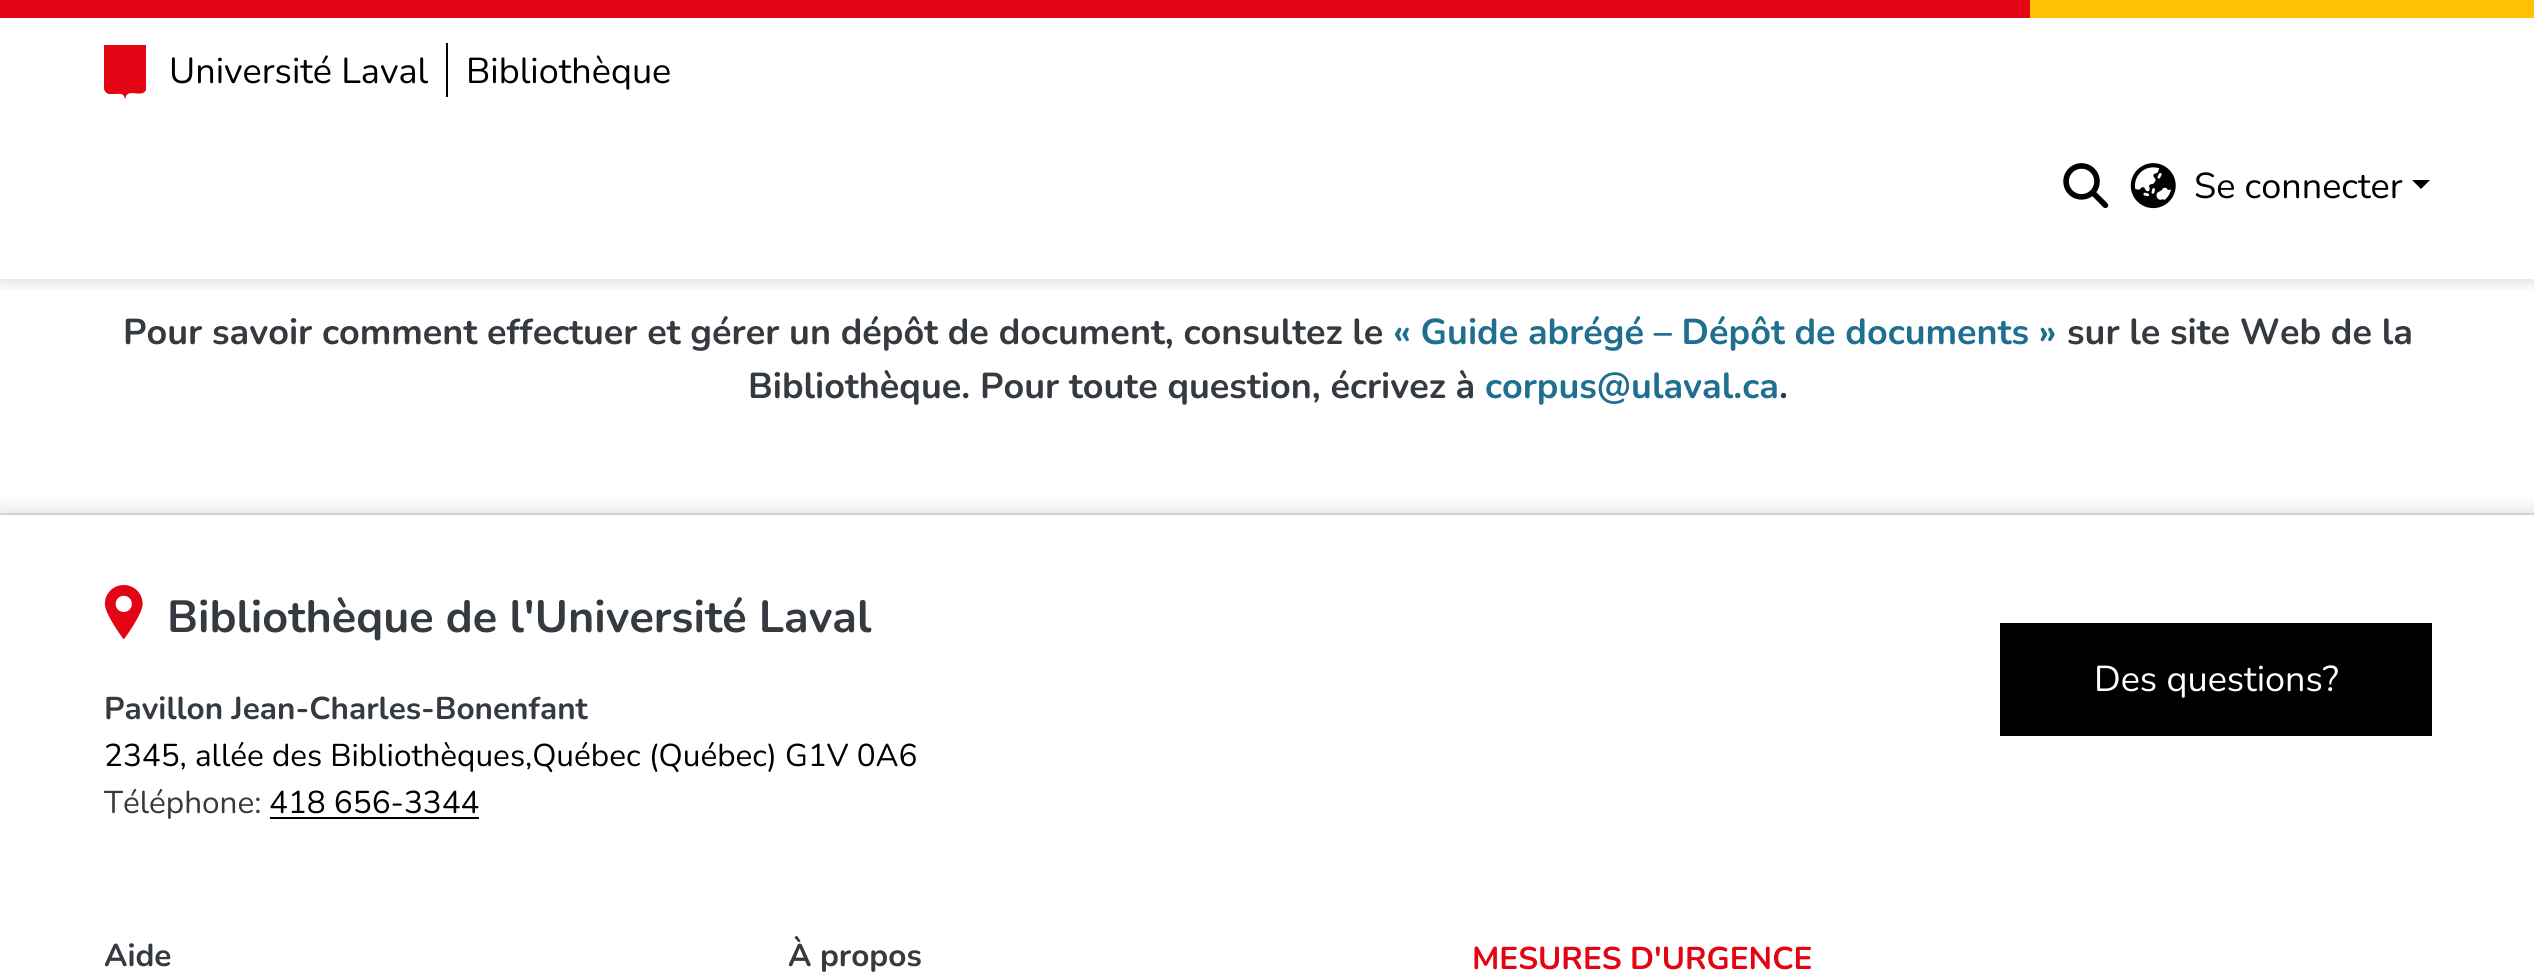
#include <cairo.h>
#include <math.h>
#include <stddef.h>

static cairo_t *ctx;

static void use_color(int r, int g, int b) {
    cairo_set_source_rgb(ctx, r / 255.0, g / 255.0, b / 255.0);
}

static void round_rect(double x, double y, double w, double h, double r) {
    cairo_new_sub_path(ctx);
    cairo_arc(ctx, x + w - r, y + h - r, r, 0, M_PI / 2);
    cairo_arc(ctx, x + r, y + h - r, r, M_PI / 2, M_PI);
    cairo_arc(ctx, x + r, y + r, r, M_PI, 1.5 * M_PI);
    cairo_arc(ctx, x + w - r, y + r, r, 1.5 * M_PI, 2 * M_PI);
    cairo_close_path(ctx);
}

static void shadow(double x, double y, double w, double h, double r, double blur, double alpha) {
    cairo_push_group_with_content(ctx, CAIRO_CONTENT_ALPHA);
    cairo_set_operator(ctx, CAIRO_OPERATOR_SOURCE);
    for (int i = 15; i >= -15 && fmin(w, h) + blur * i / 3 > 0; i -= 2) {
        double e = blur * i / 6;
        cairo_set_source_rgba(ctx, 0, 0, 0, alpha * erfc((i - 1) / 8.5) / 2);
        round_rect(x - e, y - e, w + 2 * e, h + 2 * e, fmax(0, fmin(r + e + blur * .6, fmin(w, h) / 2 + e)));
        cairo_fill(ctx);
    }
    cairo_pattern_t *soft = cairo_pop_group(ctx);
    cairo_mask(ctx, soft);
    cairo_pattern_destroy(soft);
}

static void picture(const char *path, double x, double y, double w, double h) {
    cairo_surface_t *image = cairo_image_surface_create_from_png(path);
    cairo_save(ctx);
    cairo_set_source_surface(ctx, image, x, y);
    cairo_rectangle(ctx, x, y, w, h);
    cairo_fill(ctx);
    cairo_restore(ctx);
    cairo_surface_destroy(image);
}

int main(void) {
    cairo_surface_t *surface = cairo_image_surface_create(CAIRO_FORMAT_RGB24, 2534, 978);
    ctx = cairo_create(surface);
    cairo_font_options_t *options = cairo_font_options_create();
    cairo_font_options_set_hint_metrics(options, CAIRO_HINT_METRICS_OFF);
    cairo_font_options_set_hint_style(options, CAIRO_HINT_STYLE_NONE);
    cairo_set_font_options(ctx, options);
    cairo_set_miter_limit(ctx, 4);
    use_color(255, 255, 255);
    cairo_paint(ctx);
    cairo_save(ctx);
    cairo_rectangle(ctx, 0, 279, 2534, 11);
    cairo_clip(ctx);
    use_color(0, 0, 0);
    shadow(0, 2, 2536, 279, 0, 8, 0.15);
    cairo_restore(ctx);
    use_color(227, 5, 19);
    cairo_rectangle(ctx, 0, 0, 2030, 18);
    cairo_fill(ctx);
    use_color(255, 193, 3);
    cairo_rectangle(ctx, 2030, 0, 504, 18);
    cairo_fill(ctx);
    cairo_save(ctx);
    cairo_rectangle(ctx, 104, 45, 42, 54);
    cairo_clip(ctx);
    use_color(227, 5, 19);
    cairo_new_path(ctx);
    cairo_move_to(ctx, 104, 45);
    cairo_line_to(ctx, 104, 80);
    cairo_curve_to(ctx, 104, 85, 102, 92, 109, 94);
    cairo_line_to(ctx, 115, 94);
    cairo_curve_to(ctx, 118, 94, 122, 93, 124, 96);
    cairo_line_to(ctx, 125, 99);
    cairo_curve_to(ctx, 125, 100, 126, 96, 126, 96);
    cairo_curve_to(ctx, 130, 89, 142, 98, 146, 90);
    cairo_curve_to(ctx, 147, 86, 146, 78, 146, 73);
    cairo_line_to(ctx, 146, 45);
    cairo_close_path(ctx);
    cairo_fill(ctx);
    cairo_restore(ctx);
    cairo_select_font_face(ctx, "Nunito", CAIRO_FONT_SLANT_NORMAL, CAIRO_FONT_WEIGHT_NORMAL);
    cairo_set_font_size(ctx, 36);
    use_color(0, 0, 0);
    cairo_move_to(ctx, 169, 83);
    cairo_show_text(ctx, "Université Laval");
    cairo_rectangle(ctx, 446, 43, 2, 54);
    cairo_fill(ctx);
    cairo_move_to(ctx, 466, 83);
    cairo_show_text(ctx, "Bibliothèque");
    picture("img1.png", 2063, 163, 46, 46);
    picture("img2.png", 2130, 163, 46, 46);
    cairo_move_to(ctx, 2194, 198);
    cairo_show_text(ctx, "Se connecter");
    cairo_new_path(ctx);
    cairo_move_to(ctx, 2412, 180);
    cairo_line_to(ctx, 2430, 180);
    cairo_line_to(ctx, 2421, 189);
    cairo_close_path(ctx);
    cairo_fill(ctx);
    cairo_select_font_face(ctx, "Nunito", CAIRO_FONT_SLANT_NORMAL, CAIRO_FONT_WEIGHT_BOLD);
    use_color(52, 58, 64);
    cairo_move_to(ctx, 123, 344);
    cairo_show_text(ctx, "Pour savoir comment effectuer et gérer un dépôt de document, consultez le");
    use_color(30, 111, 144);
    cairo_move_to(ctx, 1393, 344);
    cairo_show_text(ctx, "« Guide abrégé – Dépôt de documents »");
    use_color(52, 58, 64);
    cairo_move_to(ctx, 2067, 344);
    cairo_show_text(ctx, "sur le site Web de la");
    cairo_move_to(ctx, 748, 398);
    cairo_show_text(ctx, "Bibliothèque. Pour toute question, écrivez à");
    use_color(30, 111, 144);
    cairo_move_to(ctx, 1485, 398);
    cairo_show_text(ctx, "corpus@ulaval.ca");
    use_color(52, 58, 64);
    cairo_move_to(ctx, 1779, 398);
    cairo_show_text(ctx, ".");
    use_color(0, 0, 0);
    shadow(0, 513, 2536, 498, 0, 11, 0.15);
    use_color(206, 212, 218);
    cairo_rectangle(ctx, 0, 513, 2534, 2);
    cairo_fill(ctx);
    use_color(255, 255, 255);
    cairo_rectangle(ctx, 0, 515, 2534, 463);
    cairo_fill(ctx);
    picture("img3.png", 104, 585, 39, 54);
    cairo_set_font_size(ctx, 45);
    use_color(52, 58, 64);
    cairo_move_to(ctx, 167, 632);
    cairo_show_text(ctx, "Bibliothèque de l'Université Laval");
    cairo_set_font_size(ctx, 31.5);
    cairo_move_to(ctx, 104, 719);
    cairo_show_text(ctx, "Pavillon Jean-Charles-Bonenfant");
    cairo_select_font_face(ctx, "Nunito", CAIRO_FONT_SLANT_NORMAL, CAIRO_FONT_WEIGHT_NORMAL);
    use_color(0, 0, 0);
    cairo_move_to(ctx, 104, 766);
    cairo_show_text(ctx, "2345, allée des Bibliothèques,Québec (Québec) G1V 0A6");
    use_color(52, 58, 64);
    cairo_move_to(ctx, 104, 813);
    cairo_show_text(ctx, "Téléphone:");
    use_color(0, 0, 0);
    cairo_move_to(ctx, 269, 813);
    cairo_show_text(ctx, "418 656-3344");
    cairo_rectangle(ctx, 270, 817, 209, 2);
    cairo_fill(ctx);
    cairo_rectangle(ctx, 2000, 623, 432, 113);
    cairo_fill(ctx);
    cairo_set_font_size(ctx, 36);
    use_color(255, 255, 255);
    cairo_move_to(ctx, 2094, 691);
    cairo_show_text(ctx, "Des questions?");
    cairo_select_font_face(ctx, "Nunito", CAIRO_FONT_SLANT_NORMAL, CAIRO_FONT_WEIGHT_BOLD);
    cairo_set_font_size(ctx, 31.5);
    use_color(52, 58, 64);
    cairo_move_to(ctx, 104, 966);
    cairo_show_text(ctx, "Aide");
    cairo_move_to(ctx, 788, 966);
    cairo_show_text(ctx, "À propos");
    use_color(227, 5, 19);
    cairo_move_to(ctx, 1472, 969);
    cairo_show_text(ctx, "MESURES D'URGENCE");
    cairo_surface_write_to_png(surface, "result.png");
    cairo_font_options_destroy(options);
    cairo_destroy(ctx);
    cairo_surface_destroy(surface);
    return 0;
}
